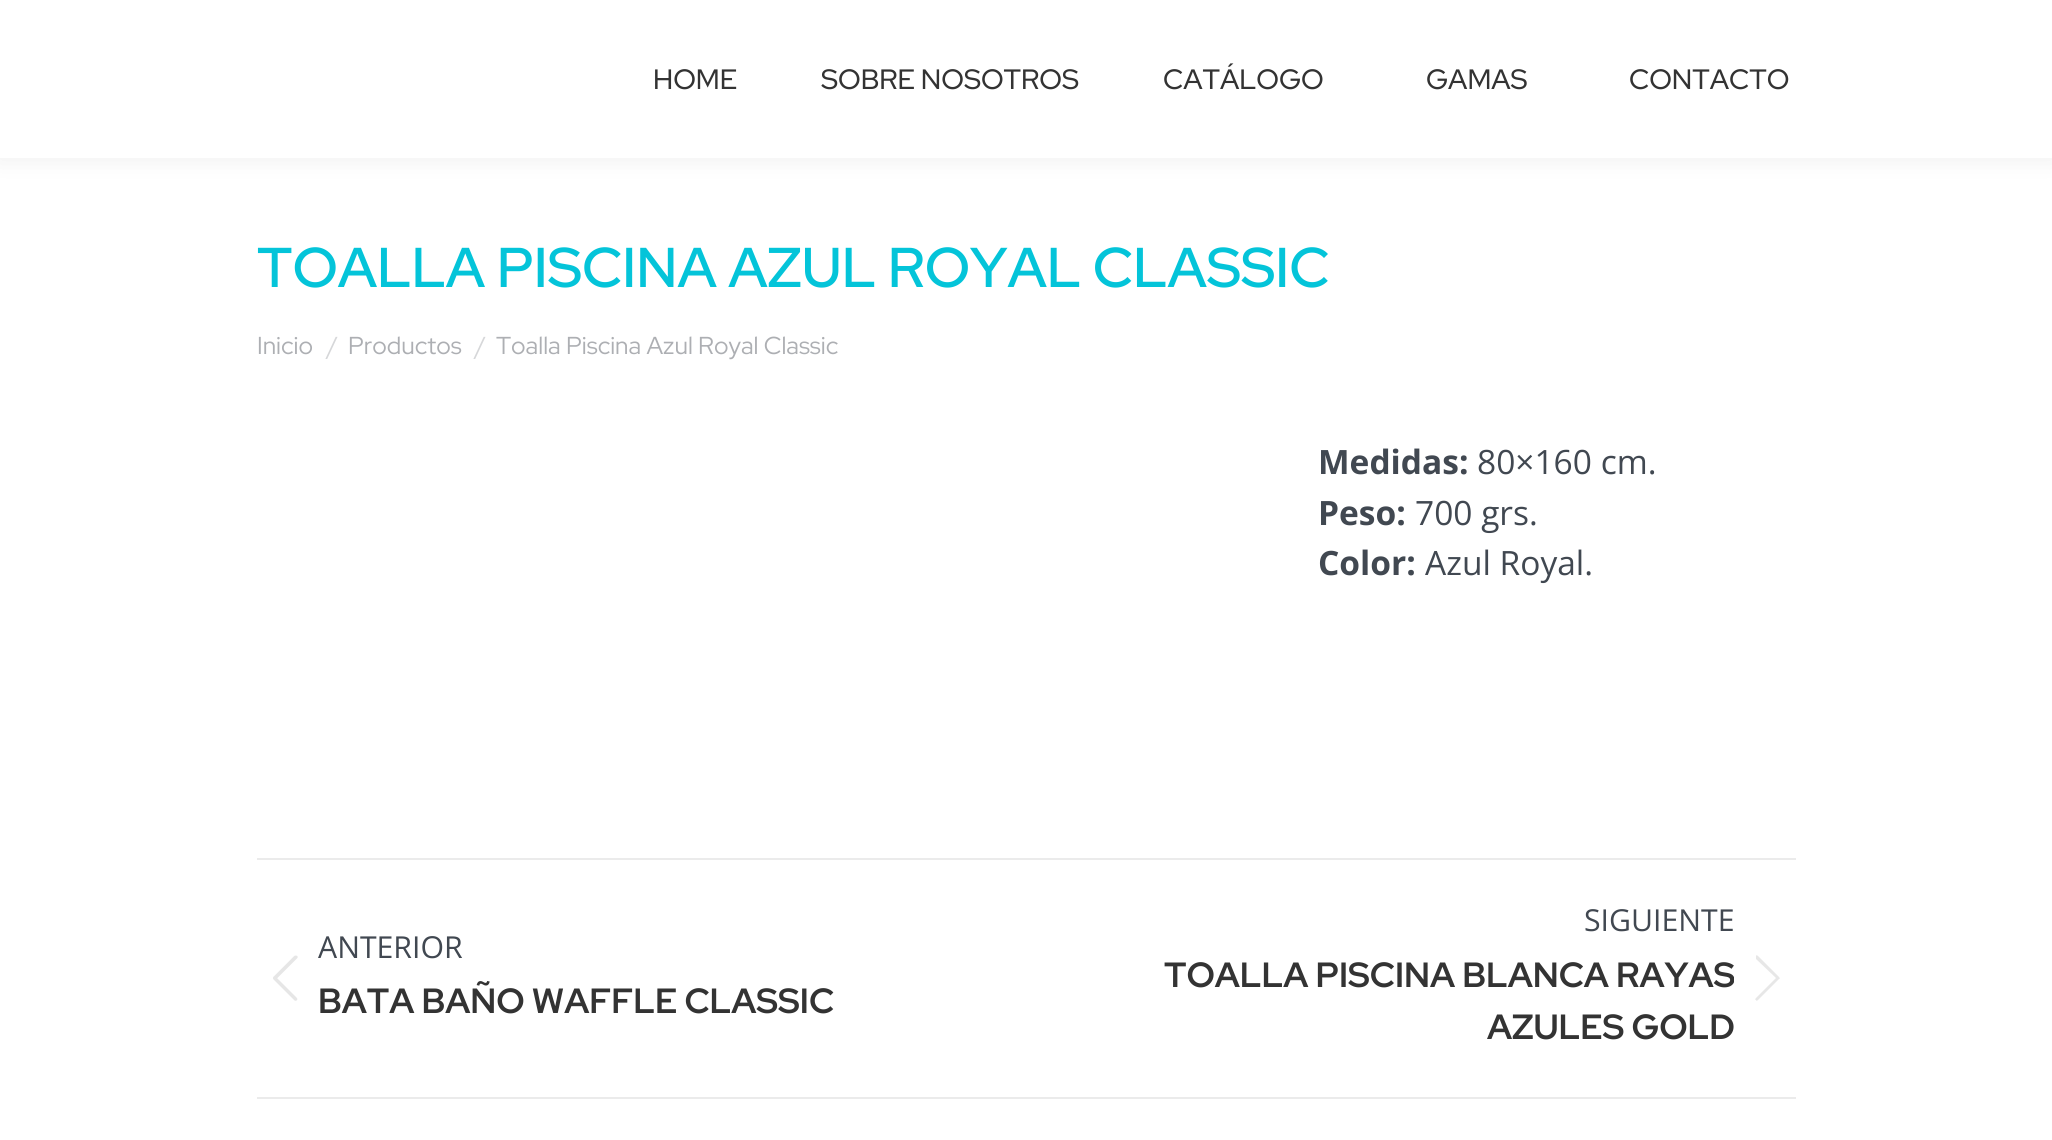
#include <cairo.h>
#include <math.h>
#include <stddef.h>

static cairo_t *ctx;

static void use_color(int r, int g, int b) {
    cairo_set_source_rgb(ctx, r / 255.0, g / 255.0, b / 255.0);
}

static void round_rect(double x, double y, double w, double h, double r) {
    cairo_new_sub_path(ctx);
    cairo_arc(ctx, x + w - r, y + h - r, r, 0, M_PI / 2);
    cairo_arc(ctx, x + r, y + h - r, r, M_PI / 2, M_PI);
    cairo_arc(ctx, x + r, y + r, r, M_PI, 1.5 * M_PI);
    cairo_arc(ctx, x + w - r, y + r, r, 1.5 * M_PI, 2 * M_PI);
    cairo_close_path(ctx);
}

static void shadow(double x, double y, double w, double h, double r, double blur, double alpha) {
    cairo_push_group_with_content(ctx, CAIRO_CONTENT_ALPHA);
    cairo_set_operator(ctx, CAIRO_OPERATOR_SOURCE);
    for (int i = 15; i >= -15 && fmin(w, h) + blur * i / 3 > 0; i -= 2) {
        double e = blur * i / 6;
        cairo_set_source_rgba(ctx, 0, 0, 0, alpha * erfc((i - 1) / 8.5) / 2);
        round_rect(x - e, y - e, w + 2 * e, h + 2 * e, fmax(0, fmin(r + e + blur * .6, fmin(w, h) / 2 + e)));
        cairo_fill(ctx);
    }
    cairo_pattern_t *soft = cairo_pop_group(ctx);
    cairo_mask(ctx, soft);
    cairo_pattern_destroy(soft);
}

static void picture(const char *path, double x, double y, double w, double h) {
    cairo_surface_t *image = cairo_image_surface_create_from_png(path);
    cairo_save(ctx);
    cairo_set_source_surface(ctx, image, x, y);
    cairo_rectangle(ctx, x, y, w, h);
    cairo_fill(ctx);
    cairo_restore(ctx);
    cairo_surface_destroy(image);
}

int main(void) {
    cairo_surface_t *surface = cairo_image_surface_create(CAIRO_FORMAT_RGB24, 2052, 1140);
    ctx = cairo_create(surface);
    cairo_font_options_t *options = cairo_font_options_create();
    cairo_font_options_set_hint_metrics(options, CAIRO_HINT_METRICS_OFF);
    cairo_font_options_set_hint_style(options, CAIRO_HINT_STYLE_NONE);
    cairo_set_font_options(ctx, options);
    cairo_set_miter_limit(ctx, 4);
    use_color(255, 255, 255);
    cairo_paint(ctx);
    use_color(0, 0, 0);
    shadow(-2, -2, 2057, 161, 0, 13, 0.07);
    use_color(255, 255, 255);
    cairo_rectangle(ctx, 0, 0, 2052, 158);
    cairo_fill(ctx);
    cairo_select_font_face(ctx, "Red Hat Display Medium", CAIRO_FONT_SLANT_NORMAL, CAIRO_FONT_WEIGHT_NORMAL);
    cairo_set_font_size(ctx, 28);
    use_color(51, 51, 51);
    cairo_move_to(ctx, 653, 89);
    cairo_show_text(ctx, "HOME");
    cairo_move_to(ctx, 821, 89);
    cairo_show_text(ctx, "SOBRE NOSOTROS");
    cairo_move_to(ctx, 1163, 89);
    cairo_show_text(ctx, "CATÁLOGO");
    cairo_move_to(ctx, 1426, 89);
    cairo_show_text(ctx, "GAMAS");
    cairo_move_to(ctx, 1629, 89);
    cairo_show_text(ctx, "CONTACTO");
    cairo_select_font_face(ctx, "Red Hat Display SemiBold", CAIRO_FONT_SLANT_NORMAL, CAIRO_FONT_WEIGHT_NORMAL);
    cairo_set_font_size(ctx, 56);
    use_color(4, 196, 217);
    cairo_move_to(ctx, 257, 287);
    cairo_show_text(ctx, "TOALLA PISCINA AZUL ROYAL CLASSIC");
    cairo_select_font_face(ctx, "Red Hat Display", CAIRO_FONT_SLANT_NORMAL, CAIRO_FONT_WEIGHT_NORMAL);
    cairo_set_font_size(ctx, 24.5);
    use_color(173, 175, 179);
    cairo_move_to(ctx, 257, 354);
    cairo_show_text(ctx, "Inicio");
    use_color(214, 215, 217);
    cairo_move_to(ctx, 327, 354);
    cairo_show_text(ctx, "/");
    use_color(173, 175, 179);
    cairo_move_to(ctx, 348, 354);
    cairo_show_text(ctx, "Productos");
    use_color(214, 215, 217);
    cairo_move_to(ctx, 475, 354);
    cairo_show_text(ctx, "/");
    use_color(173, 175, 179);
    cairo_move_to(ctx, 496, 354);
    cairo_show_text(ctx, "Toalla Piscina Azul Royal Classic");
    cairo_select_font_face(ctx, "Open Sans", CAIRO_FONT_SLANT_NORMAL, CAIRO_FONT_WEIGHT_BOLD);
    cairo_set_font_size(ctx, 33.5);
    use_color(65, 72, 81);
    cairo_move_to(ctx, 1318, 474);
    cairo_show_text(ctx, "Medidas:");
    cairo_select_font_face(ctx, "Open Sans", CAIRO_FONT_SLANT_NORMAL, CAIRO_FONT_WEIGHT_NORMAL);
    cairo_move_to(ctx, 1477, 474);
    cairo_show_text(ctx, "80×160 cm.");
    cairo_select_font_face(ctx, "Open Sans", CAIRO_FONT_SLANT_NORMAL, CAIRO_FONT_WEIGHT_BOLD);
    cairo_move_to(ctx, 1318, 525);
    cairo_show_text(ctx, "Peso:");
    cairo_select_font_face(ctx, "Open Sans", CAIRO_FONT_SLANT_NORMAL, CAIRO_FONT_WEIGHT_NORMAL);
    cairo_move_to(ctx, 1415, 525);
    cairo_show_text(ctx, "700 grs.");
    cairo_select_font_face(ctx, "Open Sans", CAIRO_FONT_SLANT_NORMAL, CAIRO_FONT_WEIGHT_BOLD);
    cairo_move_to(ctx, 1318, 575);
    cairo_show_text(ctx, "Color:");
    cairo_select_font_face(ctx, "Open Sans", CAIRO_FONT_SLANT_NORMAL, CAIRO_FONT_WEIGHT_NORMAL);
    cairo_move_to(ctx, 1425, 575);
    cairo_show_text(ctx, "Azul Royal.");
    use_color(235, 235, 235);
    cairo_rectangle(ctx, 257, 858, 1539, 2);
    cairo_fill(ctx);
    cairo_rectangle(ctx, 257, 1097, 1539, 2);
    cairo_fill(ctx);
    cairo_set_font_size(ctx, 30.25);
    use_color(65, 72, 81);
    cairo_move_to(ctx, 318, 958);
    cairo_show_text(ctx, "ANTERIOR");
    picture("img1.png", 273, 955, 25, 46);
    cairo_select_font_face(ctx, "Red Hat Display", CAIRO_FONT_SLANT_NORMAL, CAIRO_FONT_WEIGHT_BOLD);
    cairo_set_font_size(ctx, 35);
    use_color(51, 51, 51);
    cairo_move_to(ctx, 318, 1013);
    cairo_show_text(ctx, "BATA BAÑO WAFFLE CLASSIC");
    cairo_select_font_face(ctx, "Open Sans", CAIRO_FONT_SLANT_NORMAL, CAIRO_FONT_WEIGHT_NORMAL);
    cairo_set_font_size(ctx, 30.25);
    use_color(65, 72, 81);
    cairo_move_to(ctx, 1584, 931);
    cairo_show_text(ctx, "SIGUIENTE");
    cairo_select_font_face(ctx, "Red Hat Display", CAIRO_FONT_SLANT_NORMAL, CAIRO_FONT_WEIGHT_BOLD);
    cairo_set_font_size(ctx, 35);
    use_color(51, 51, 51);
    cairo_move_to(ctx, 1164, 987);
    cairo_show_text(ctx, "TOALLA PISCINA BLANCA RAYAS");
    cairo_move_to(ctx, 1487, 1039);
    cairo_show_text(ctx, "AZULES GOLD");
    use_color(231, 231, 231);
    cairo_new_path(ctx);
    cairo_move_to(ctx, 1756, 956);
    cairo_curve_to(ctx, 1756, 955, 1757, 955, 1758, 956);
    cairo_line_to(ctx, 1779, 977);
    cairo_curve_to(ctx, 1780, 978, 1780, 979, 1779, 979);
    cairo_line_to(ctx, 1758, 1000);
    cairo_curve_to(ctx, 1757, 1001, 1756, 1001, 1756, 1000);
    cairo_curve_to(ctx, 1755, 1000, 1755, 999, 1756, 998);
    cairo_line_to(ctx, 1776, 978);
    cairo_line_to(ctx, 1756, 959);
    cairo_close_path(ctx);
    cairo_fill(ctx);
    cairo_surface_write_to_png(surface, "result.png");
    cairo_font_options_destroy(options);
    cairo_destroy(ctx);
    cairo_surface_destroy(surface);
    return 0;
}
